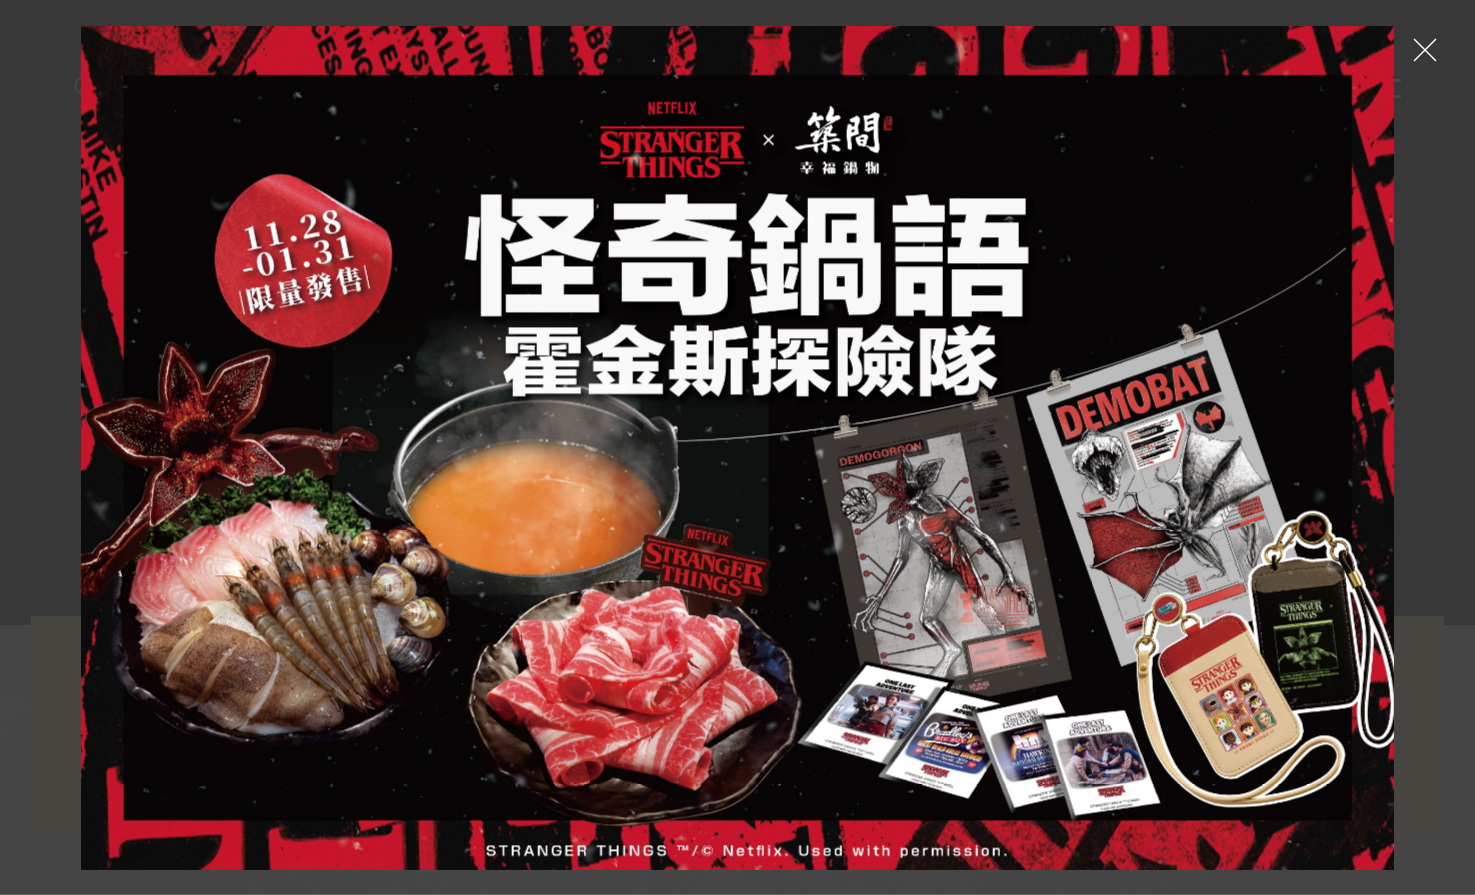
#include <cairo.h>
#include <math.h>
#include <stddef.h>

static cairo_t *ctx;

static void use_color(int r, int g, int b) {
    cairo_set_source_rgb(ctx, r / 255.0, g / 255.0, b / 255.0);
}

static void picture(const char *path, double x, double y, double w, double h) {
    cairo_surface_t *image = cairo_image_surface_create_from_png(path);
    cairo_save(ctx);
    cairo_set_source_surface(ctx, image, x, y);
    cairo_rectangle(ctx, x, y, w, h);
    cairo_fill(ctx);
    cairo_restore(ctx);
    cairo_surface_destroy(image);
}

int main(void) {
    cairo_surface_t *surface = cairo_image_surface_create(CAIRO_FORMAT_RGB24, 1475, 895);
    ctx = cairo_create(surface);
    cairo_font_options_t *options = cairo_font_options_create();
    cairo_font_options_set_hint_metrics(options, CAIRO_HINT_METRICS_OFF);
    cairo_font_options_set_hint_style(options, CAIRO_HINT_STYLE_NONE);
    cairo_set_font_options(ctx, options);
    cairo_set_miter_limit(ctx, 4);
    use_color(255, 255, 255);
    cairo_paint(ctx);
    picture("img1.png", 0, 0, 1475, 895);
    cairo_set_source_rgba(ctx, 0.176, 0.176, 0.176, 0.5);
    cairo_rectangle(ctx, 0, 0, 1475, 625);
    cairo_fill(ctx);
    use_color(70, 69, 63);
    cairo_rectangle(ctx, 31, 616, 1413, 217);
    cairo_fill(ctx);
    picture("img2.png", 81, 26, 1313, 844);
    use_color(255, 255, 255);
    cairo_new_path(ctx);
    cairo_move_to(ctx, 1414.5, 38.5);
    cairo_line_to(ctx, 1436.5, 60.5);
    cairo_line_to(ctx, 1435.5, 61.5);
    cairo_line_to(ctx, 1413.5, 39.5);
    cairo_close_path(ctx);
    cairo_fill(ctx);
    cairo_new_path(ctx);
    cairo_move_to(ctx, 1435.5, 38.5);
    cairo_line_to(ctx, 1436.5, 39.5);
    cairo_line_to(ctx, 1414.5, 61.5);
    cairo_line_to(ctx, 1413.5, 60.5);
    cairo_close_path(ctx);
    cairo_fill(ctx);
    picture("img3.png", 74, 76, 7, 19);
    use_color(71, 71, 71);
    cairo_rectangle(ctx, 1394, 79, 7, 3);
    cairo_fill(ctx);
    cairo_rectangle(ctx, 1394, 95, 7, 3);
    cairo_fill(ctx);
    cairo_surface_write_to_png(surface, "result.png");
    cairo_font_options_destroy(options);
    cairo_destroy(ctx);
    cairo_surface_destroy(surface);
    return 0;
}
